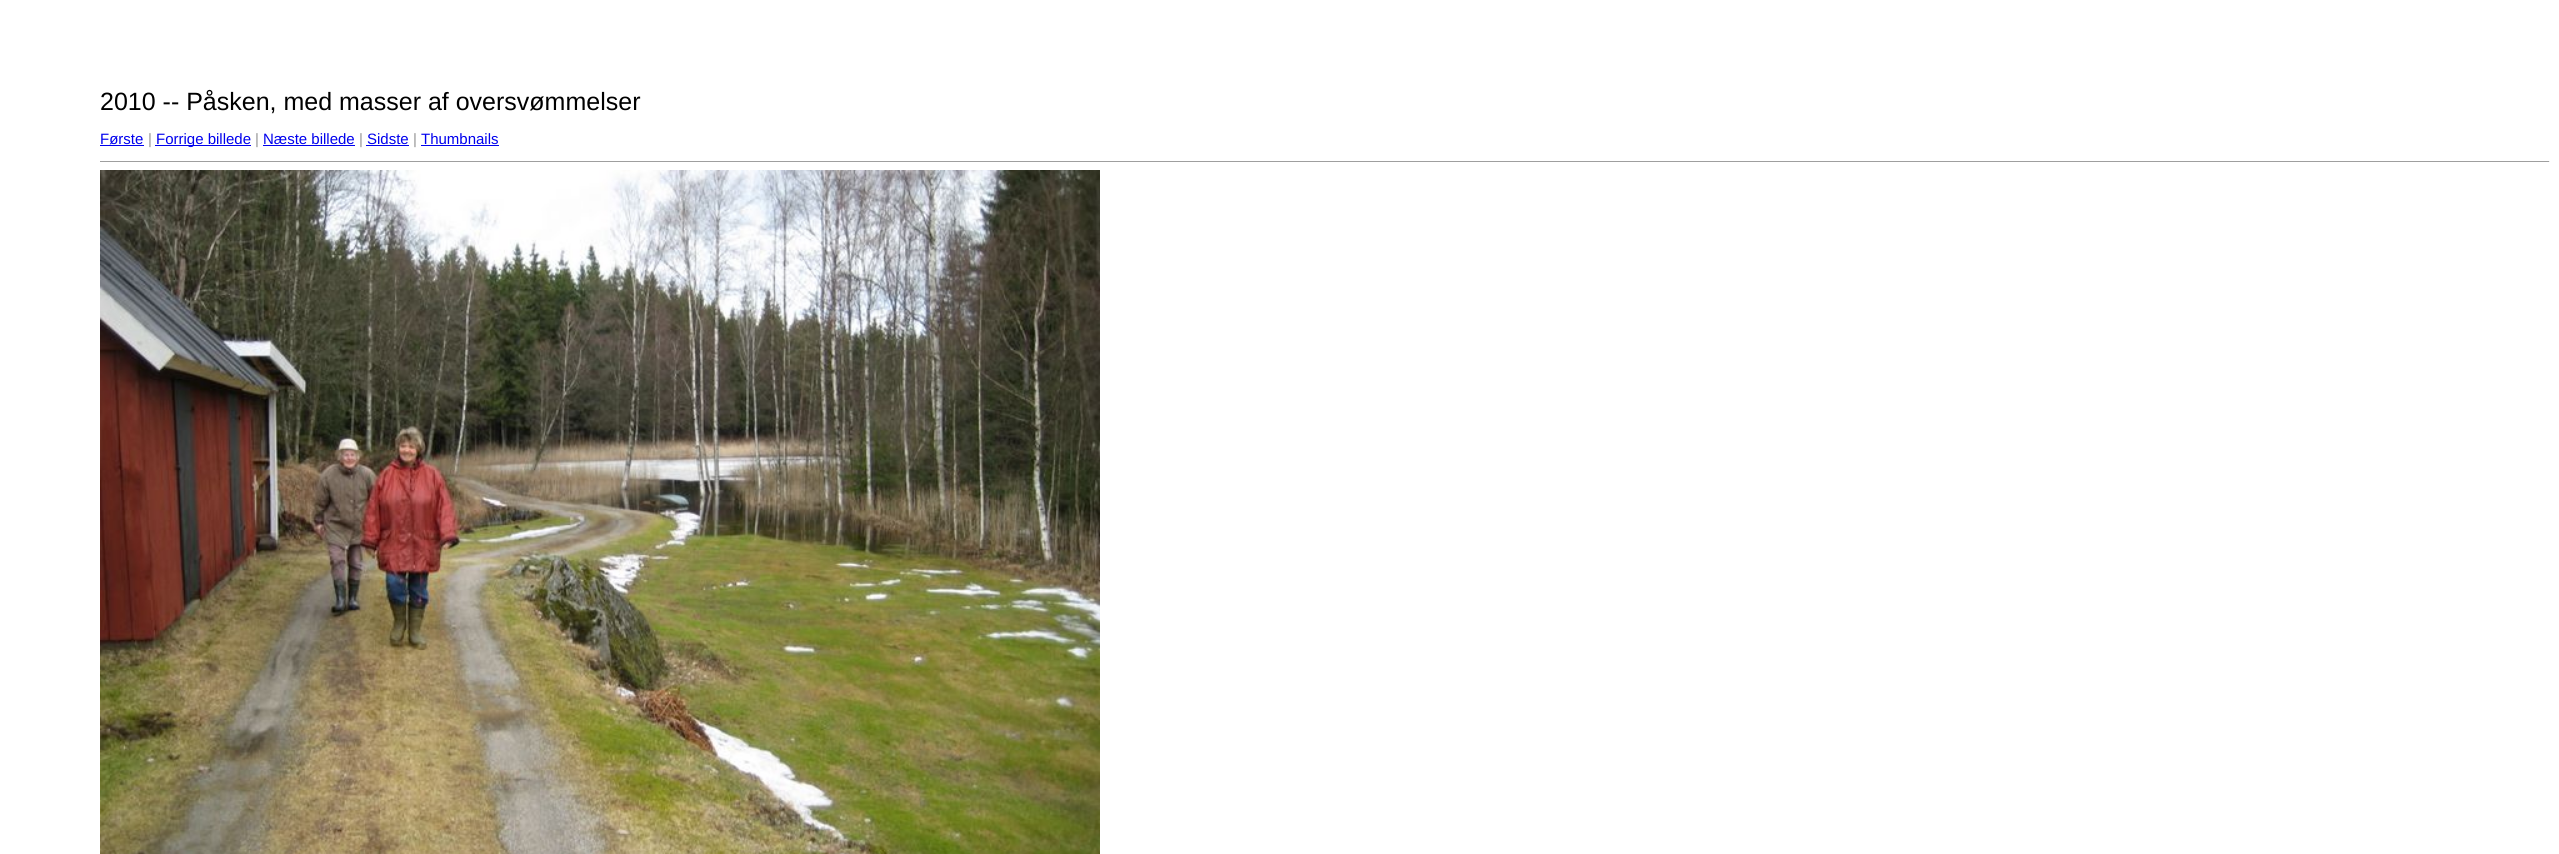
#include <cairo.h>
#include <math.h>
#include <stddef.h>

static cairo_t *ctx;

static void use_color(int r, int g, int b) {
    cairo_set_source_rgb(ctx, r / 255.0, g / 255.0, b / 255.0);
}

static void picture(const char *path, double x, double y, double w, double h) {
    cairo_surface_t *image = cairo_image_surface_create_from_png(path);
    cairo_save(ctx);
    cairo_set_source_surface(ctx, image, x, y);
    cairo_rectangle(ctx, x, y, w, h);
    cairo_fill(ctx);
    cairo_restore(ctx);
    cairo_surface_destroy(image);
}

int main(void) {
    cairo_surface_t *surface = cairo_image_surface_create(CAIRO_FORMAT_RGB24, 2559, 854);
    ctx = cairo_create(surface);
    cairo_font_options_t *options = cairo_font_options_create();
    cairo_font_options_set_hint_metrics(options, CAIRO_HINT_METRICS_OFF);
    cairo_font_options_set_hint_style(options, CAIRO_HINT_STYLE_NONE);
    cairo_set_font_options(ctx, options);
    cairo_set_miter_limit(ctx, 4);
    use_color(255, 255, 255);
    cairo_paint(ctx);
    cairo_select_font_face(ctx, "Liberation Sans", CAIRO_FONT_SLANT_NORMAL, CAIRO_FONT_WEIGHT_NORMAL);
    cairo_set_font_size(ctx, 25);
    use_color(0, 0, 0);
    cairo_move_to(ctx, 100, 110);
    cairo_show_text(ctx, "2010 -- Påsken, med masser af oversvømmelser");
    cairo_set_font_size(ctx, 15);
    use_color(0, 0, 238);
    cairo_move_to(ctx, 100, 144);
    cairo_show_text(ctx, "Første");
    cairo_rectangle(ctx, 100, 145, 44, 1);
    cairo_fill(ctx);
    use_color(151, 151, 151);
    cairo_move_to(ctx, 148, 144);
    cairo_show_text(ctx, "|");
    use_color(0, 0, 238);
    cairo_rectangle(ctx, 155, 145, 96, 1);
    cairo_fill(ctx);
    cairo_move_to(ctx, 156, 144);
    cairo_show_text(ctx, "Forrige billede");
    use_color(151, 151, 151);
    cairo_move_to(ctx, 255, 144);
    cairo_show_text(ctx, "|");
    use_color(0, 0, 238);
    cairo_move_to(ctx, 263, 144);
    cairo_show_text(ctx, "Næste billede");
    cairo_rectangle(ctx, 263, 145, 92, 1);
    cairo_fill(ctx);
    use_color(151, 151, 151);
    cairo_move_to(ctx, 359, 144);
    cairo_show_text(ctx, "|");
    use_color(0, 0, 238);
    cairo_move_to(ctx, 367, 144);
    cairo_show_text(ctx, "Sidste");
    cairo_rectangle(ctx, 366, 145, 43, 1);
    cairo_fill(ctx);
    use_color(151, 151, 151);
    cairo_move_to(ctx, 413, 144);
    cairo_show_text(ctx, "|");
    use_color(0, 0, 238);
    cairo_move_to(ctx, 421, 144);
    cairo_show_text(ctx, "Thumbnails");
    cairo_rectangle(ctx, 421, 145, 78, 1);
    cairo_fill(ctx);
    use_color(159, 159, 159);
    cairo_rectangle(ctx, 100, 161, 2450, 1);
    cairo_fill(ctx);
    use_color(238, 238, 238);
    cairo_rectangle(ctx, 2549, 161, 1, 1);
    cairo_fill(ctx);
    picture("img1.png", 100, 170, 1000, 684);
    cairo_surface_write_to_png(surface, "result.png");
    cairo_font_options_destroy(options);
    cairo_destroy(ctx);
    cairo_surface_destroy(surface);
    return 0;
}
